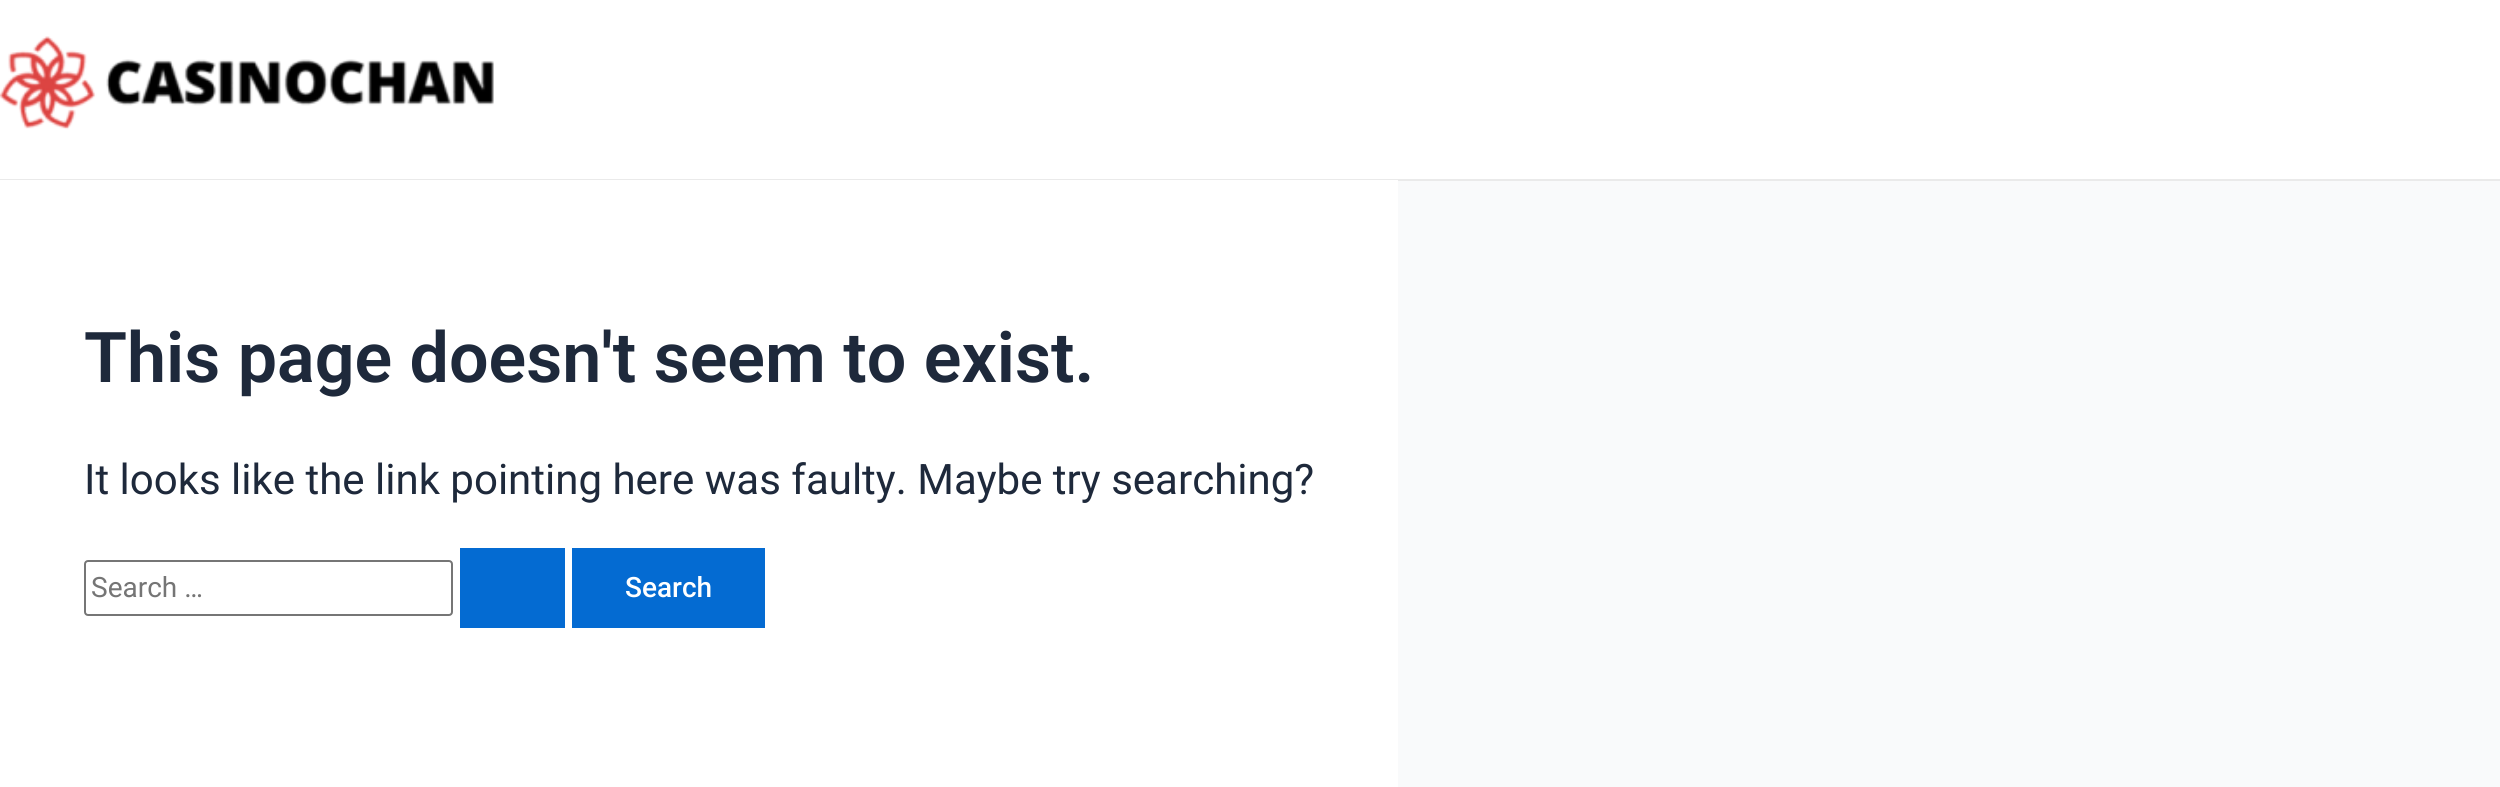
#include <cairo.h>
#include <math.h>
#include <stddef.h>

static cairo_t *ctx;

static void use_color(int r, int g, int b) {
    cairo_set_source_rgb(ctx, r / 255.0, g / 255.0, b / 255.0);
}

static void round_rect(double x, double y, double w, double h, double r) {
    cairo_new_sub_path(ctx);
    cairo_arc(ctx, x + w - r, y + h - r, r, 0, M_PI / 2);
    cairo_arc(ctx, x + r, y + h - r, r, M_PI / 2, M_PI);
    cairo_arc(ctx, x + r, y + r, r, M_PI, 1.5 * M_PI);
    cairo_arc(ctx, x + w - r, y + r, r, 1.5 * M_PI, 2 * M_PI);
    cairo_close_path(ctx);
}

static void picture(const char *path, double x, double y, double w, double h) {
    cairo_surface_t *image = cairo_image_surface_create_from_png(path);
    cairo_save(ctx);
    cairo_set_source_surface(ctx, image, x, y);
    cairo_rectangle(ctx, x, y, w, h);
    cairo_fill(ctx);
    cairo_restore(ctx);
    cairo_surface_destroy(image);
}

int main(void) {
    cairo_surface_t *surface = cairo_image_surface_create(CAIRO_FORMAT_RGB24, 2500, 787);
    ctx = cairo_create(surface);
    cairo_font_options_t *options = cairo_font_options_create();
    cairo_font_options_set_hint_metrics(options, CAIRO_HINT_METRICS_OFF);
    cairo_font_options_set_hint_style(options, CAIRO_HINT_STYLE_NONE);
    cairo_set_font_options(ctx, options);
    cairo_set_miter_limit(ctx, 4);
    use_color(249, 250, 251);
    cairo_paint(ctx);
    use_color(255, 255, 255);
    cairo_rectangle(ctx, 0, 0, 2500, 179);
    cairo_fill(ctx);
    use_color(234, 234, 234);
    cairo_rectangle(ctx, 0, 179, 2500, 2);
    cairo_fill(ctx);
    picture("img1.png", 0, 36, 494, 94);
    use_color(255, 255, 255);
    cairo_rectangle(ctx, 0, 180, 1398, 607);
    cairo_fill(ctx);
    cairo_select_font_face(ctx, "Roboto SemiBold", CAIRO_FONT_SLANT_NORMAL, CAIRO_FONT_WEIGHT_NORMAL);
    cairo_set_font_size(ctx, 70);
    use_color(30, 41, 59);
    cairo_move_to(ctx, 84, 382);
    cairo_show_text(ctx, "This page doesn't seem to exist.");
    cairo_select_font_face(ctx, "Roboto", CAIRO_FONT_SLANT_NORMAL, CAIRO_FONT_WEIGHT_NORMAL);
    cairo_set_font_size(ctx, 42);
    cairo_move_to(ctx, 84, 494);
    cairo_show_text(ctx, "It looks like the link pointing here was faulty. Maybe try searching?");
    round_rect(85, 561, 367, 54, 3);
    use_color(118, 118, 118);
    cairo_stroke(ctx);
    cairo_set_font_size(ctx, 28);
    use_color(117, 117, 117);
    cairo_move_to(ctx, 91, 597);
    cairo_show_text(ctx, "Search …");
    use_color(4, 107, 210);
    cairo_rectangle(ctx, 460, 548, 105, 80);
    cairo_fill(ctx);
    cairo_rectangle(ctx, 572, 548, 193, 80);
    cairo_fill(ctx);
    cairo_select_font_face(ctx, "Roboto Medium", CAIRO_FONT_SLANT_NORMAL, CAIRO_FONT_WEIGHT_NORMAL);
    use_color(255, 255, 255);
    cairo_move_to(ctx, 625, 597);
    cairo_show_text(ctx, "Search");
    cairo_surface_write_to_png(surface, "result.png");
    cairo_font_options_destroy(options);
    cairo_destroy(ctx);
    cairo_surface_destroy(surface);
    return 0;
}
